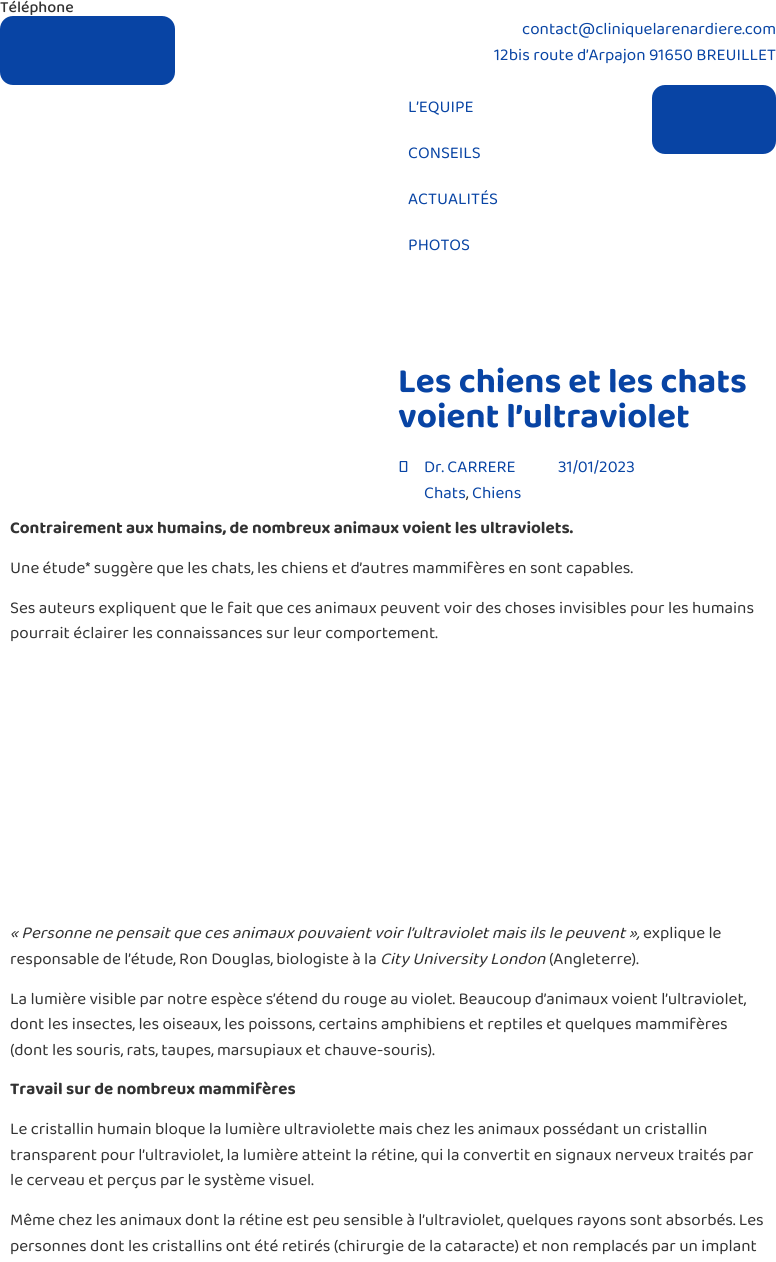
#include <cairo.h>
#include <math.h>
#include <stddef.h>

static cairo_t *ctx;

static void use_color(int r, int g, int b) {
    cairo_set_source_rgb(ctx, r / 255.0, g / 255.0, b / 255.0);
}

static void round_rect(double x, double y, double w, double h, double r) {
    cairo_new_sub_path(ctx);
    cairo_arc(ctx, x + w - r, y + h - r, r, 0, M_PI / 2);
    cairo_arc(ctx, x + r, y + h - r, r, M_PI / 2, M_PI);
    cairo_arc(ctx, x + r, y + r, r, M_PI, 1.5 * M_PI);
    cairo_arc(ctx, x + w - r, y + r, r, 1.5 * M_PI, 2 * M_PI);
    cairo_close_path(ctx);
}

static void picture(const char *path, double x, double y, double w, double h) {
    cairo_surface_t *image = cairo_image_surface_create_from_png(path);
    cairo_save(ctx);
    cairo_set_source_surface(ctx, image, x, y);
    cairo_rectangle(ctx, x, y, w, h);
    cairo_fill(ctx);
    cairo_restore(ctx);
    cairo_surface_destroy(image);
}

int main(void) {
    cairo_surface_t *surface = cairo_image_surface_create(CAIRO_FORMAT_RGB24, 776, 1262);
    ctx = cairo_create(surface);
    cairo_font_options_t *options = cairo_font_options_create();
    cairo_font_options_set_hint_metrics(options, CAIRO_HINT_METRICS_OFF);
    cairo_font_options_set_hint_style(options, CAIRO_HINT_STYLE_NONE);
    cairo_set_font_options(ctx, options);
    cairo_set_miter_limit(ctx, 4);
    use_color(255, 255, 255);
    cairo_paint(ctx);
    cairo_select_font_face(ctx, "Baloo 2 Medium", CAIRO_FONT_SLANT_NORMAL, CAIRO_FONT_WEIGHT_NORMAL);
    cairo_set_font_size(ctx, 16);
    use_color(51, 51, 51);
    cairo_move_to(ctx, 0, 12);
    cairo_show_text(ctx, "Téléphone");
    use_color(8, 68, 164);
    round_rect(1.5, 17.5, 172, 66, 11.5);
    cairo_fill_preserve(ctx);
    cairo_set_line_width(ctx, 3);
    cairo_stroke(ctx);
    cairo_select_font_face(ctx, "Baloo 2", CAIRO_FONT_SLANT_NORMAL, CAIRO_FONT_WEIGHT_NORMAL);
    cairo_set_font_size(ctx, 17);
    cairo_move_to(ctx, 522, 34);
    cairo_show_text(ctx, "contact@cliniquelarenardiere.com");
    cairo_move_to(ctx, 494, 60);
    cairo_show_text(ctx, "12bis route d’Arpajon 91650 BREUILLET");
    cairo_move_to(ctx, 408, 112);
    cairo_show_text(ctx, "L’EQUIPE");
    cairo_move_to(ctx, 408, 158);
    cairo_show_text(ctx, "CONSEILS");
    cairo_move_to(ctx, 408, 204);
    cairo_show_text(ctx, "ACTUALITÉS");
    cairo_move_to(ctx, 408, 250);
    cairo_show_text(ctx, "PHOTOS");
    round_rect(653.5, 86.5, 121, 66, 11.5);
    cairo_fill_preserve(ctx);
    cairo_stroke(ctx);
    cairo_select_font_face(ctx, "Baloo 2", CAIRO_FONT_SLANT_NORMAL, CAIRO_FONT_WEIGHT_BOLD);
    cairo_set_font_size(ctx, 35);
    cairo_move_to(ctx, 398, 392);
    cairo_show_text(ctx, "Les chiens et les chats");
    cairo_move_to(ctx, 398, 427);
    cairo_show_text(ctx, "voient l’ultraviolet");
    picture("img1.png", 399, 461, 9, 11);
    cairo_select_font_face(ctx, "Baloo 2", CAIRO_FONT_SLANT_NORMAL, CAIRO_FONT_WEIGHT_NORMAL);
    cairo_set_font_size(ctx, 17);
    cairo_move_to(ctx, 424, 472);
    cairo_show_text(ctx, "Dr. CARRERE");
    cairo_move_to(ctx, 558, 472);
    cairo_show_text(ctx, "31/01/2023");
    cairo_move_to(ctx, 424, 498);
    cairo_show_text(ctx, "Chats");
    use_color(51, 51, 51);
    cairo_move_to(ctx, 466, 498);
    cairo_show_text(ctx, ",");
    use_color(8, 68, 164);
    cairo_move_to(ctx, 472, 498);
    cairo_show_text(ctx, "Chiens");
    cairo_select_font_face(ctx, "Baloo 2", CAIRO_FONT_SLANT_NORMAL, CAIRO_FONT_WEIGHT_BOLD);
    use_color(51, 51, 51);
    cairo_move_to(ctx, 10, 533);
    cairo_show_text(ctx, "Contrairement aux humains, de nombreux animaux voient les ultraviolets.");
    cairo_select_font_face(ctx, "Baloo 2", CAIRO_FONT_SLANT_NORMAL, CAIRO_FONT_WEIGHT_NORMAL);
    cairo_move_to(ctx, 10, 573);
    cairo_show_text(ctx, "Une étude* suggère que les chats, les chiens et d’autres mammifères en sont capables.");
    cairo_move_to(ctx, 10, 613);
    cairo_show_text(ctx, "Ses auteurs expliquent que le fait que ces animaux peuvent voir des choses invisibles pour les humains");
    cairo_move_to(ctx, 10, 638);
    cairo_show_text(ctx, "pourrait éclairer les connaissances sur leur comportement.");
    cairo_select_font_face(ctx, "Baloo 2", CAIRO_FONT_SLANT_ITALIC, CAIRO_FONT_WEIGHT_NORMAL);
    cairo_move_to(ctx, 10, 938);
    cairo_show_text(ctx, "« Personne ne pensait que ces animaux pouvaient voir l’ultraviolet mais ils le peuvent »,");
    cairo_select_font_face(ctx, "Baloo 2", CAIRO_FONT_SLANT_NORMAL, CAIRO_FONT_WEIGHT_NORMAL);
    cairo_move_to(ctx, 643, 938);
    cairo_show_text(ctx, "explique le");
    cairo_move_to(ctx, 10, 964);
    cairo_show_text(ctx, "responsable de l’étude, Ron Douglas, biologiste à la");
    cairo_select_font_face(ctx, "Baloo 2", CAIRO_FONT_SLANT_ITALIC, CAIRO_FONT_WEIGHT_NORMAL);
    cairo_move_to(ctx, 380, 964);
    cairo_show_text(ctx, "City University London");
    cairo_select_font_face(ctx, "Baloo 2", CAIRO_FONT_SLANT_NORMAL, CAIRO_FONT_WEIGHT_NORMAL);
    cairo_move_to(ctx, 549, 964);
    cairo_show_text(ctx, "(Angleterre).");
    cairo_move_to(ctx, 10, 1004);
    cairo_show_text(ctx, "La lumière visible par notre espèce s’étend du rouge au violet. Beaucoup d’animaux voient l’ultraviolet,");
    cairo_move_to(ctx, 10, 1029);
    cairo_show_text(ctx, "dont les insectes, les oiseaux, les poissons, certains amphibiens et reptiles et quelques mammifères");
    cairo_move_to(ctx, 10, 1055);
    cairo_show_text(ctx, "(dont les souris, rats, taupes, marsupiaux et chauve-souris).");
    cairo_select_font_face(ctx, "Baloo 2", CAIRO_FONT_SLANT_NORMAL, CAIRO_FONT_WEIGHT_BOLD);
    cairo_move_to(ctx, 10, 1094);
    cairo_show_text(ctx, "Travail sur de nombreux mammifères");
    cairo_select_font_face(ctx, "Baloo 2", CAIRO_FONT_SLANT_NORMAL, CAIRO_FONT_WEIGHT_NORMAL);
    cairo_move_to(ctx, 10, 1134);
    cairo_show_text(ctx, "Le cristallin humain bloque la lumière ultraviolette mais chez les animaux possédant un cristallin");
    cairo_move_to(ctx, 10, 1160);
    cairo_show_text(ctx, "transparent pour l’ultraviolet, la lumière atteint la rétine, qui la convertit en signaux nerveux traités par");
    cairo_move_to(ctx, 10, 1185);
    cairo_show_text(ctx, "le cerveau et perçus par le système visuel.");
    cairo_move_to(ctx, 10, 1225);
    cairo_show_text(ctx, "Même chez les animaux dont la rétine est peu sensible à l’ultraviolet, quelques rayons sont absorbés. Les");
    cairo_move_to(ctx, 10, 1251);
    cairo_show_text(ctx, "personnes dont les cristallins ont été retirés (chirurgie de la cataracte) et non remplacés par un implant");
    cairo_surface_write_to_png(surface, "result.png");
    cairo_font_options_destroy(options);
    cairo_destroy(ctx);
    cairo_surface_destroy(surface);
    return 0;
}
